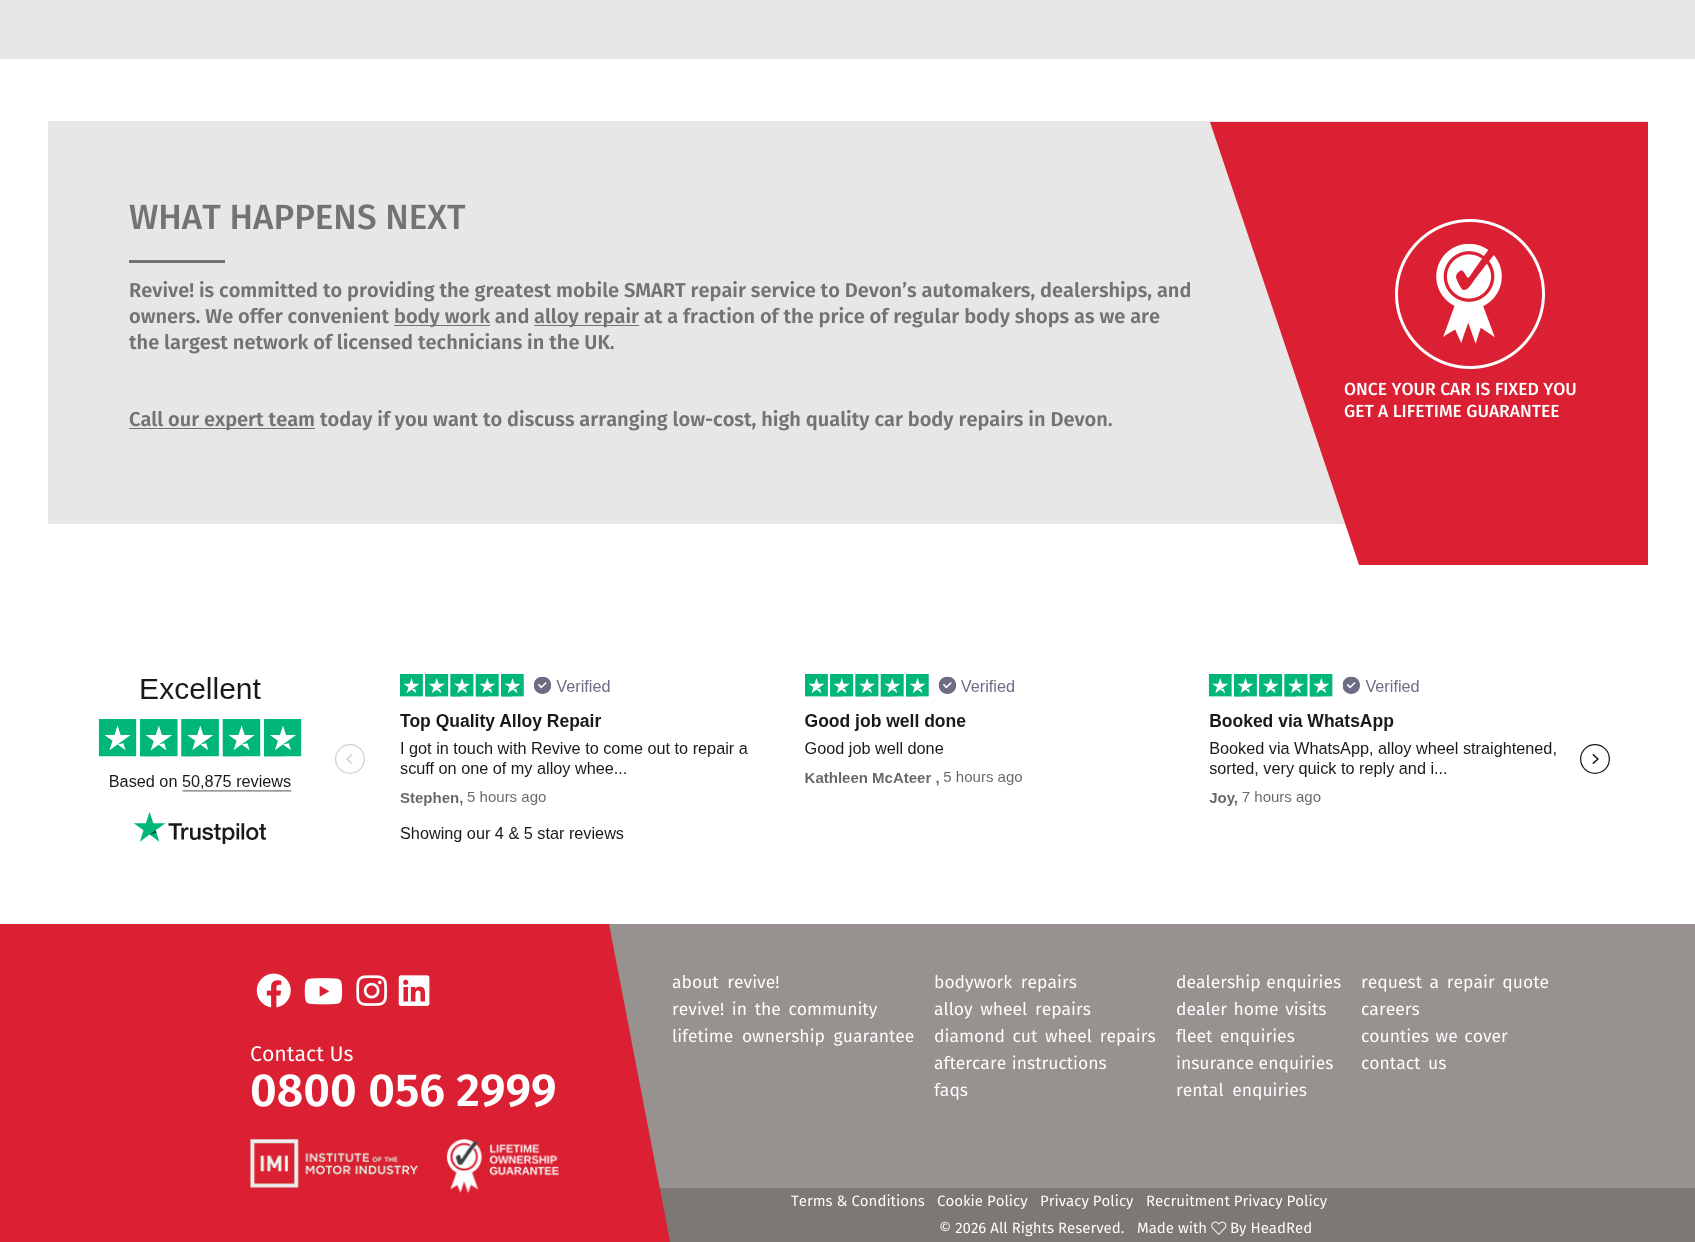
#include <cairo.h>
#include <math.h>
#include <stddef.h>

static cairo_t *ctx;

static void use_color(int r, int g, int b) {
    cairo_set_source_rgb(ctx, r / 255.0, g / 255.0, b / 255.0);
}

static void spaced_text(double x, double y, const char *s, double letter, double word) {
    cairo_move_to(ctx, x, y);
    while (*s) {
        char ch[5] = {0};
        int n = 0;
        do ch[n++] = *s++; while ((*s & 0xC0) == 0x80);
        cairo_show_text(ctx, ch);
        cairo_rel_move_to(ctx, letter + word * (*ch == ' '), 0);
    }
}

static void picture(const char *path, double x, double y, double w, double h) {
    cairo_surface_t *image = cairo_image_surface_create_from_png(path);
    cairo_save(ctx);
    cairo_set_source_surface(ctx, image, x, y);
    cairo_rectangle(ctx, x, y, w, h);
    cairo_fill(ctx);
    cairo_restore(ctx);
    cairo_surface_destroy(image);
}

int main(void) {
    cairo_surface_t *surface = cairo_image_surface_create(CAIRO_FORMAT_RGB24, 1695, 1242);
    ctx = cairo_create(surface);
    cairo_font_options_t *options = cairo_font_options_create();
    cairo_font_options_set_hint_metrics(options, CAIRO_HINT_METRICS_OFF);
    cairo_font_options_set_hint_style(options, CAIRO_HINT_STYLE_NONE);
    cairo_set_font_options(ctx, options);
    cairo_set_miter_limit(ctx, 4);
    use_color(255, 255, 255);
    cairo_paint(ctx);
    use_color(231, 231, 231);
    cairo_rectangle(ctx, 0, 0, 1695, 59);
    cairo_fill(ctx);
    cairo_rectangle(ctx, 48, 121, 1600, 403);
    cairo_fill(ctx);
    cairo_select_font_face(ctx, "Fira Sans Medium", CAIRO_FONT_SLANT_NORMAL, CAIRO_FONT_WEIGHT_NORMAL);
    cairo_set_font_size(ctx, 35);
    use_color(115, 115, 115);
    cairo_move_to(ctx, 129, 229);
    cairo_show_text(ctx, "WHAT HAPPENS NEXT");
    cairo_rectangle(ctx, 129, 260, 96, 3);
    cairo_fill(ctx);
    cairo_select_font_face(ctx, "Fira Sans SemiBold", CAIRO_FONT_SLANT_NORMAL, CAIRO_FONT_WEIGHT_NORMAL);
    cairo_set_font_size(ctx, 20);
    cairo_move_to(ctx, 129, 297);
    cairo_show_text(ctx, "Revive! is committed to providing the greatest mobile SMART repair service to Devon’s automakers, dealerships, and");
    cairo_move_to(ctx, 129, 323);
    cairo_show_text(ctx, "owners. We offer convenient");
    cairo_rectangle(ctx, 394, 325, 96, 1);
    cairo_fill(ctx);
    cairo_move_to(ctx, 394, 323);
    cairo_show_text(ctx, "body work and");
    cairo_rectangle(ctx, 534, 325, 105, 1);
    cairo_fill(ctx);
    cairo_move_to(ctx, 534, 323);
    cairo_show_text(ctx, "alloy repair at a fraction of the price of regular body shops as we are");
    cairo_move_to(ctx, 129, 349);
    cairo_show_text(ctx, "the largest network of licensed technicians in the UK.");
    cairo_rectangle(ctx, 129, 428, 186, 1);
    cairo_fill(ctx);
    cairo_move_to(ctx, 129, 426);
    cairo_show_text(ctx, "Call our expert team today if you want to discuss arranging low-cost, high quality car body repairs in Devon.");
    use_color(218, 32, 50);
    cairo_new_path(ctx);
    cairo_move_to(ctx, 1210, 122);
    cairo_line_to(ctx, 1359, 565);
    cairo_line_to(ctx, 1648, 565);
    cairo_line_to(ctx, 1648, 122);
    cairo_close_path(ctx);
    cairo_fill(ctx);
    cairo_arc(ctx, 1470, 294, 73.5, 0, 2 * M_PI);
    use_color(255, 255, 255);
    cairo_set_line_width(ctx, 3);
    cairo_stroke(ctx);
    picture("img1.png", 1436, 244, 66, 100);
    cairo_select_font_face(ctx, "Fira Sans Medium", CAIRO_FONT_SLANT_NORMAL, CAIRO_FONT_WEIGHT_NORMAL);
    cairo_set_font_size(ctx, 17.5);
    cairo_move_to(ctx, 1344, 395);
    cairo_show_text(ctx, "ONCE YOUR CAR IS FIXED YOU");
    cairo_move_to(ctx, 1344, 417);
    cairo_show_text(ctx, "GET A LIFETIME GUARANTEE");
    picture("img2.png", 98, 674, 1512, 170);
    use_color(218, 32, 50);
    cairo_rectangle(ctx, 0, 924, 609, 318);
    cairo_fill(ctx);
    picture("img3.png", 256, 973, 35, 35);
    picture("img4.png", 304, 978, 39, 27);
    picture("img5.png", 356, 975, 31, 31);
    picture("img6.png", 398, 975, 32, 31);
    use_color(151, 146, 144);
    cairo_rectangle(ctx, 609, 924, 1086, 264);
    cairo_fill(ctx);
    use_color(125, 120, 117);
    cairo_rectangle(ctx, 659, 1188, 1036, 54);
    cairo_fill(ctx);
    use_color(218, 32, 50);
    cairo_new_path(ctx);
    cairo_move_to(ctx, 609, 924);
    cairo_line_to(ctx, 670, 1241);
    cairo_line_to(ctx, 670, 1242);
    cairo_line_to(ctx, 609, 1242);
    cairo_close_path(ctx);
    cairo_fill(ctx);
    cairo_select_font_face(ctx, "Fira Sans", CAIRO_FONT_SLANT_NORMAL, CAIRO_FONT_WEIGHT_NORMAL);
    cairo_set_font_size(ctx, 21.25);
    use_color(255, 255, 255);
    cairo_move_to(ctx, 250, 1061);
    cairo_show_text(ctx, "Contact Us");
    cairo_select_font_face(ctx, "Fira Sans SemiBold", CAIRO_FONT_SLANT_NORMAL, CAIRO_FONT_WEIGHT_NORMAL);
    cairo_set_font_size(ctx, 46.25);
    cairo_move_to(ctx, 250, 1106);
    cairo_show_text(ctx, "0800 056 2999");
    picture("img7.png", 250, 1139, 309, 54);
    cairo_select_font_face(ctx, "Fira Sans", CAIRO_FONT_SLANT_NORMAL, CAIRO_FONT_WEIGHT_NORMAL);
    cairo_set_font_size(ctx, 17.5);
    spaced_text(672, 988, "about revive!", 0, 4);
    spaced_text(672, 1015, "revive! in the community", 0, 3);
    spaced_text(672, 1042, "lifetime ownership guarantee", 0, 4);
    spaced_text(934, 988, "bodywork repairs", 0, 4);
    spaced_text(934, 1015, "alloy wheel repairs", 0, 3);
    spaced_text(934, 1042, "diamond cut wheel repairs", 0, 3);
    spaced_text(934, 1069, "aftercare instructions", 0, 1);
    cairo_move_to(ctx, 934, 1096);
    cairo_show_text(ctx, "faqs");
    spaced_text(1176, 988, "dealership enquiries", 0, 1);
    spaced_text(1176, 1015, "dealer home visits", 0, 2);
    spaced_text(1176, 1042, "fleet enquiries", 0, 3);
    cairo_move_to(ctx, 1176, 1069);
    cairo_show_text(ctx, "insurance enquiries");
    spaced_text(1176, 1096, "rental enquiries", 0, 4);
    spaced_text(1361, 988, "request a repair quote", 0, 3);
    cairo_move_to(ctx, 1361, 1015);
    cairo_show_text(ctx, "careers");
    spaced_text(1361, 1042, "counties we cover", 0, 2);
    spaced_text(1361, 1069, "contact us", 0, 3);
    cairo_set_font_size(ctx, 15);
    cairo_move_to(ctx, 791, 1206);
    cairo_show_text(ctx, "Terms & Conditions");
    cairo_move_to(ctx, 937, 1206);
    cairo_show_text(ctx, "Cookie Policy");
    cairo_move_to(ctx, 1040, 1206);
    cairo_show_text(ctx, "Privacy Policy");
    cairo_move_to(ctx, 1146, 1206);
    cairo_show_text(ctx, "Recruitment Privacy Policy");
    cairo_move_to(ctx, 939, 1233);
    cairo_show_text(ctx, "© 2026 All Rights Reserved.");
    cairo_move_to(ctx, 1137, 1233);
    cairo_show_text(ctx, "Made with");
    picture("img8.png", 1211, 1221, 16, 14);
    cairo_move_to(ctx, 1230, 1233);
    cairo_show_text(ctx, "By HeadRed");
    cairo_surface_write_to_png(surface, "result.png");
    cairo_font_options_destroy(options);
    cairo_destroy(ctx);
    cairo_surface_destroy(surface);
    return 0;
}
